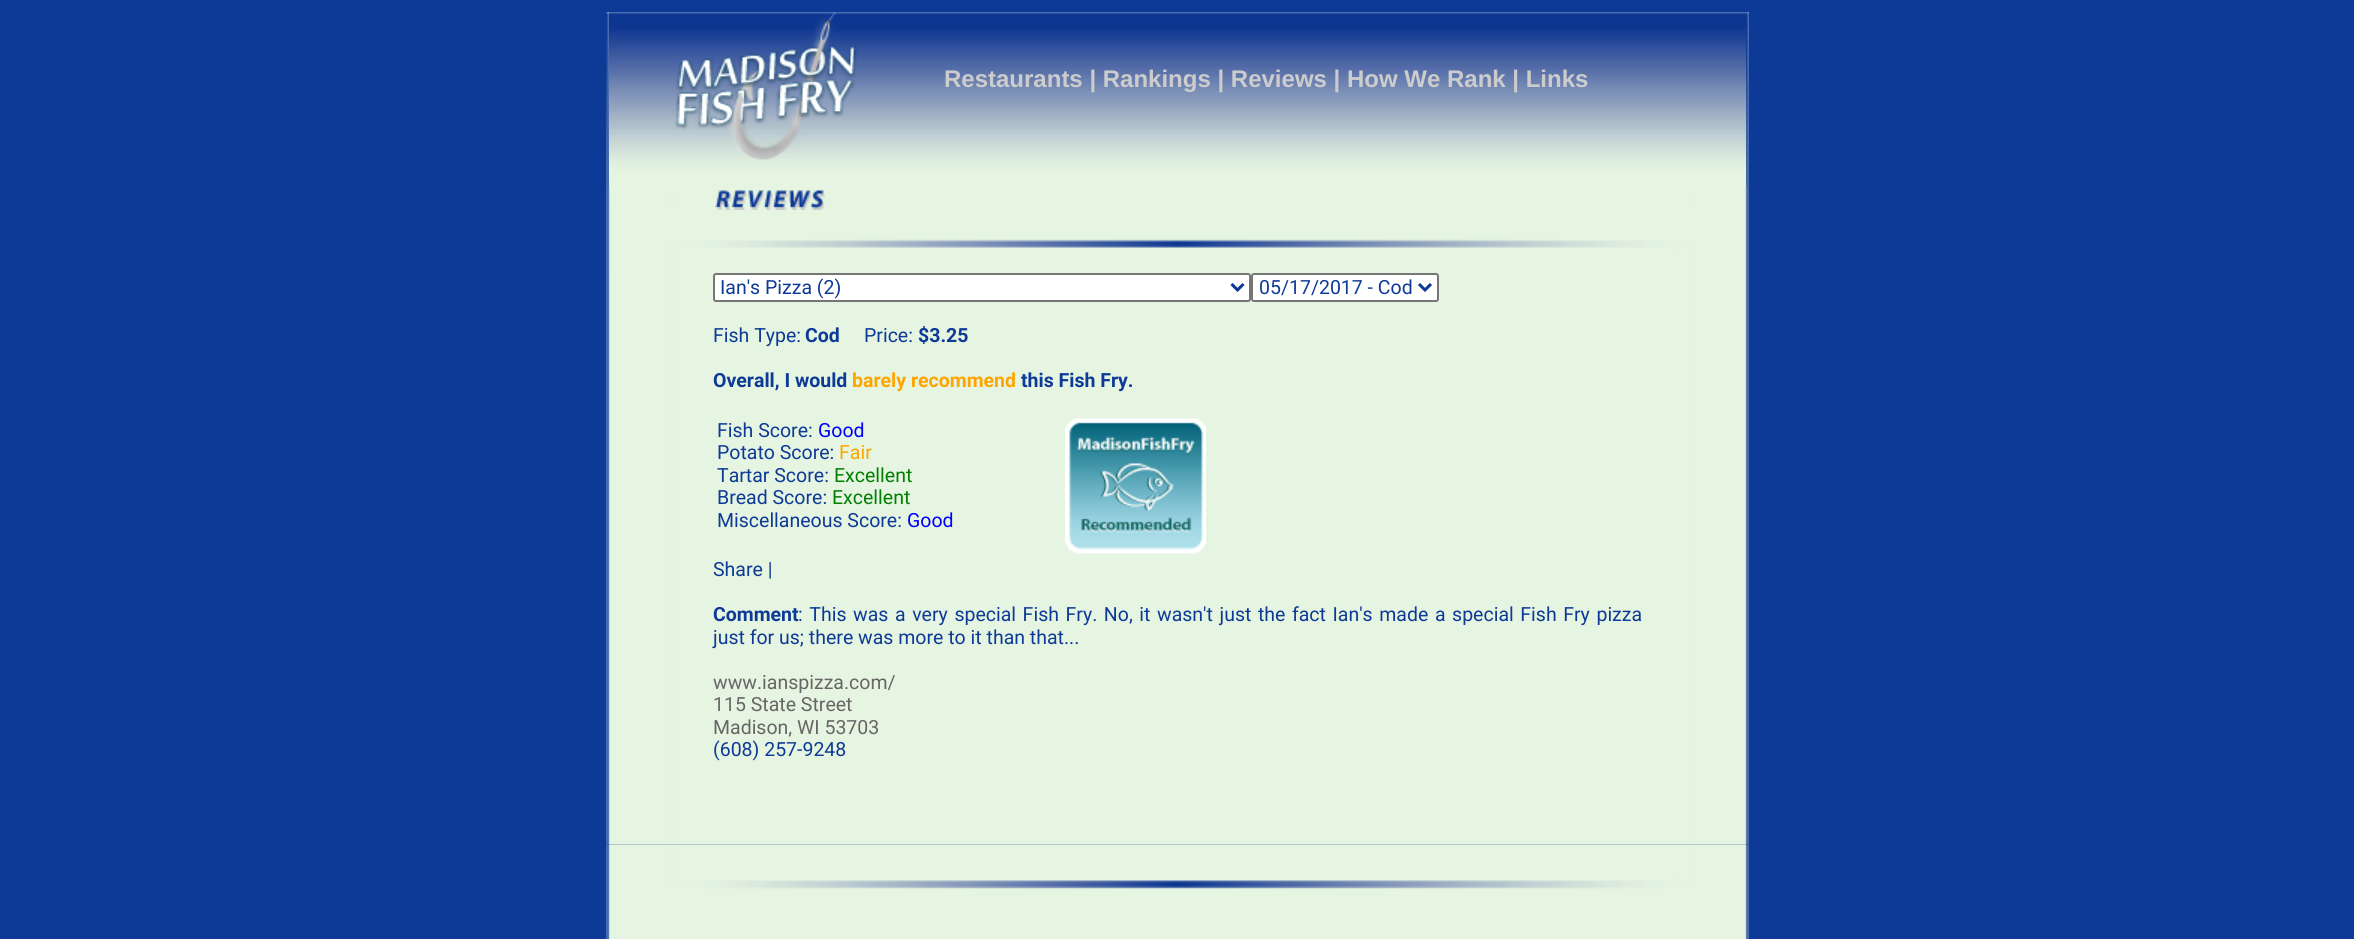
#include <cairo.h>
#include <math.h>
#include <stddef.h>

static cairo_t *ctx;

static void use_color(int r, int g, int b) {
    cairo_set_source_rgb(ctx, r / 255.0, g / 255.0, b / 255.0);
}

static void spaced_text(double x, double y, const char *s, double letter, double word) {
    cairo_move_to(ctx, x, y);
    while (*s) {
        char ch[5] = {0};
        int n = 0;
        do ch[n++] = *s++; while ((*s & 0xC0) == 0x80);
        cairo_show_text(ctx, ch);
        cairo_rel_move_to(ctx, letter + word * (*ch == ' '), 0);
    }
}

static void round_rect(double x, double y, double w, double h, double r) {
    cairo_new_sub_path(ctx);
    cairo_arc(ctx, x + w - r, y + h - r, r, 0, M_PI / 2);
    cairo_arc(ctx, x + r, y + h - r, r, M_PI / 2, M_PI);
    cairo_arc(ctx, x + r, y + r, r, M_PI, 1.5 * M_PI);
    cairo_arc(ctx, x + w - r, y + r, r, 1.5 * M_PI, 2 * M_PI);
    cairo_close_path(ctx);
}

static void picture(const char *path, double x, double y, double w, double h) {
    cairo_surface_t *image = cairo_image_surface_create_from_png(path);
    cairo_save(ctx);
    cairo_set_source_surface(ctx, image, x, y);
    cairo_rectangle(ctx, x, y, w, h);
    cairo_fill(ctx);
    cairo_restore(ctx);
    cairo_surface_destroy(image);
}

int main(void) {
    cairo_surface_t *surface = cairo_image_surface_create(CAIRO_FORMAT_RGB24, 2354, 939);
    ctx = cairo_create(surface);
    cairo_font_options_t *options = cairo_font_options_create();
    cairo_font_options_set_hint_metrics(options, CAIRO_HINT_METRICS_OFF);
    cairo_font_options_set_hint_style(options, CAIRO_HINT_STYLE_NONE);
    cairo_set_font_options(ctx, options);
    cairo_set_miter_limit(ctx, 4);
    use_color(13, 58, 150);
    cairo_paint(ctx);
    picture("img1.png", 609, 12, 1137, 174);
    picture("img2.png", 606, 12, 3, 174);
    picture("img3.png", 675, 12, 182, 148);
    cairo_select_font_face(ctx, "Liberation Sans", CAIRO_FONT_SLANT_NORMAL, CAIRO_FONT_WEIGHT_BOLD);
    cairo_set_font_size(ctx, 24);
    use_color(204, 204, 204);
    cairo_move_to(ctx, 944, 87);
    cairo_show_text(ctx, "Restaurants | Rankings | Reviews | How We Rank | Links");
    picture("img2.png", 1746, 12, 3, 174);
    picture("img4.png", 606, 186, 1143, 27);
    picture("img5.png", 715, 190, 110, 20);
    picture("img6.png", 606, 213, 1143, 60);
    picture("img7.png", 606, 273, 1143, 572);
    use_color(255, 255, 255);
    round_rect(714, 274, 536, 27, 2);
    cairo_fill_preserve(ctx);
    use_color(118, 118, 118);
    cairo_stroke(ctx);
    cairo_new_path(ctx);
    cairo_move_to(ctx, 1231.5, 284);
    cairo_line_to(ctx, 1237.5, 290);
    cairo_line_to(ctx, 1243.5, 284);
    use_color(13, 58, 150);
    cairo_set_line_width(ctx, 3);
    cairo_stroke(ctx);
    cairo_select_font_face(ctx, "Roboto", CAIRO_FONT_SLANT_NORMAL, CAIRO_FONT_WEIGHT_NORMAL);
    cairo_set_font_size(ctx, 19.5);
    cairo_move_to(ctx, 720, 294);
    cairo_show_text(ctx, "Ian's Pizza (2)");
    use_color(255, 255, 255);
    round_rect(1252, 274, 186, 27, 2);
    cairo_fill_preserve(ctx);
    use_color(118, 118, 118);
    cairo_set_line_width(ctx, 2);
    cairo_stroke(ctx);
    cairo_new_path(ctx);
    cairo_move_to(ctx, 1419, 284);
    cairo_line_to(ctx, 1425, 290);
    cairo_line_to(ctx, 1431, 284);
    use_color(13, 58, 150);
    cairo_set_line_width(ctx, 3);
    cairo_stroke(ctx);
    cairo_move_to(ctx, 1259, 294);
    cairo_show_text(ctx, "05/17/2017 - Cod");
    cairo_move_to(ctx, 713, 342);
    cairo_show_text(ctx, "Fish Type:");
    cairo_select_font_face(ctx, "Roboto", CAIRO_FONT_SLANT_NORMAL, CAIRO_FONT_WEIGHT_BOLD);
    cairo_move_to(ctx, 805, 342);
    cairo_show_text(ctx, "Cod");
    cairo_select_font_face(ctx, "Roboto", CAIRO_FONT_SLANT_NORMAL, CAIRO_FONT_WEIGHT_NORMAL);
    cairo_move_to(ctx, 864, 342);
    cairo_show_text(ctx, "Price:");
    cairo_select_font_face(ctx, "Roboto", CAIRO_FONT_SLANT_NORMAL, CAIRO_FONT_WEIGHT_BOLD);
    cairo_move_to(ctx, 918, 342);
    cairo_show_text(ctx, "$3.25");
    cairo_move_to(ctx, 713, 387);
    cairo_show_text(ctx, "Overall, I would");
    use_color(255, 165, 0);
    cairo_move_to(ctx, 852, 387);
    cairo_show_text(ctx, "barely recommend");
    use_color(13, 58, 150);
    cairo_move_to(ctx, 1021, 387);
    cairo_show_text(ctx, "this Fish Fry.");
    cairo_select_font_face(ctx, "Roboto", CAIRO_FONT_SLANT_NORMAL, CAIRO_FONT_WEIGHT_NORMAL);
    cairo_move_to(ctx, 717, 437);
    cairo_show_text(ctx, "Fish Score:");
    use_color(0, 0, 255);
    cairo_move_to(ctx, 818, 437);
    cairo_show_text(ctx, "Good");
    use_color(13, 58, 150);
    cairo_move_to(ctx, 717, 459);
    cairo_show_text(ctx, "Potato Score:");
    use_color(255, 165, 0);
    cairo_move_to(ctx, 839, 459);
    cairo_show_text(ctx, "Fair");
    use_color(13, 58, 150);
    cairo_move_to(ctx, 717, 482);
    cairo_show_text(ctx, "Tartar Score:");
    use_color(0, 128, 0);
    cairo_move_to(ctx, 834, 482);
    cairo_show_text(ctx, "Excellent");
    use_color(13, 58, 150);
    cairo_move_to(ctx, 717, 504);
    cairo_show_text(ctx, "Bread Score:");
    use_color(0, 128, 0);
    cairo_move_to(ctx, 832, 504);
    cairo_show_text(ctx, "Excellent");
    use_color(13, 58, 150);
    cairo_move_to(ctx, 717, 527);
    cairo_show_text(ctx, "Miscellaneous Score:");
    use_color(0, 0, 255);
    cairo_move_to(ctx, 907, 527);
    cairo_show_text(ctx, "Good");
    picture("img8.png", 1065, 418, 141, 136);
    use_color(13, 58, 150);
    cairo_move_to(ctx, 713, 576);
    cairo_show_text(ctx, "Share |");
    cairo_select_font_face(ctx, "Roboto", CAIRO_FONT_SLANT_NORMAL, CAIRO_FONT_WEIGHT_BOLD);
    cairo_move_to(ctx, 713, 621);
    cairo_show_text(ctx, "Comment");
    cairo_select_font_face(ctx, "Roboto", CAIRO_FONT_SLANT_NORMAL, CAIRO_FONT_WEIGHT_NORMAL);
    spaced_text(798, 621, ": This was a very special Fish Fry. No, it wasn't just the fact Ian's made a special Fish Fry pizza", 0, 1.75);
    cairo_move_to(ctx, 713, 644);
    cairo_show_text(ctx, "just for us; there was more to it than that...");
    use_color(102, 102, 102);
    cairo_move_to(ctx, 713, 689);
    cairo_show_text(ctx, "www.ianspizza.com/");
    cairo_move_to(ctx, 713, 711);
    cairo_show_text(ctx, "115 State Street");
    cairo_move_to(ctx, 713, 734);
    cairo_show_text(ctx, "Madison, WI 53703");
    use_color(13, 58, 150);
    cairo_move_to(ctx, 713, 756);
    cairo_show_text(ctx, "(608) 257-9248");
    picture("img9.png", 606, 844, 1143, 95);
    cairo_surface_write_to_png(surface, "result.png");
    cairo_font_options_destroy(options);
    cairo_destroy(ctx);
    cairo_surface_destroy(surface);
    return 0;
}
